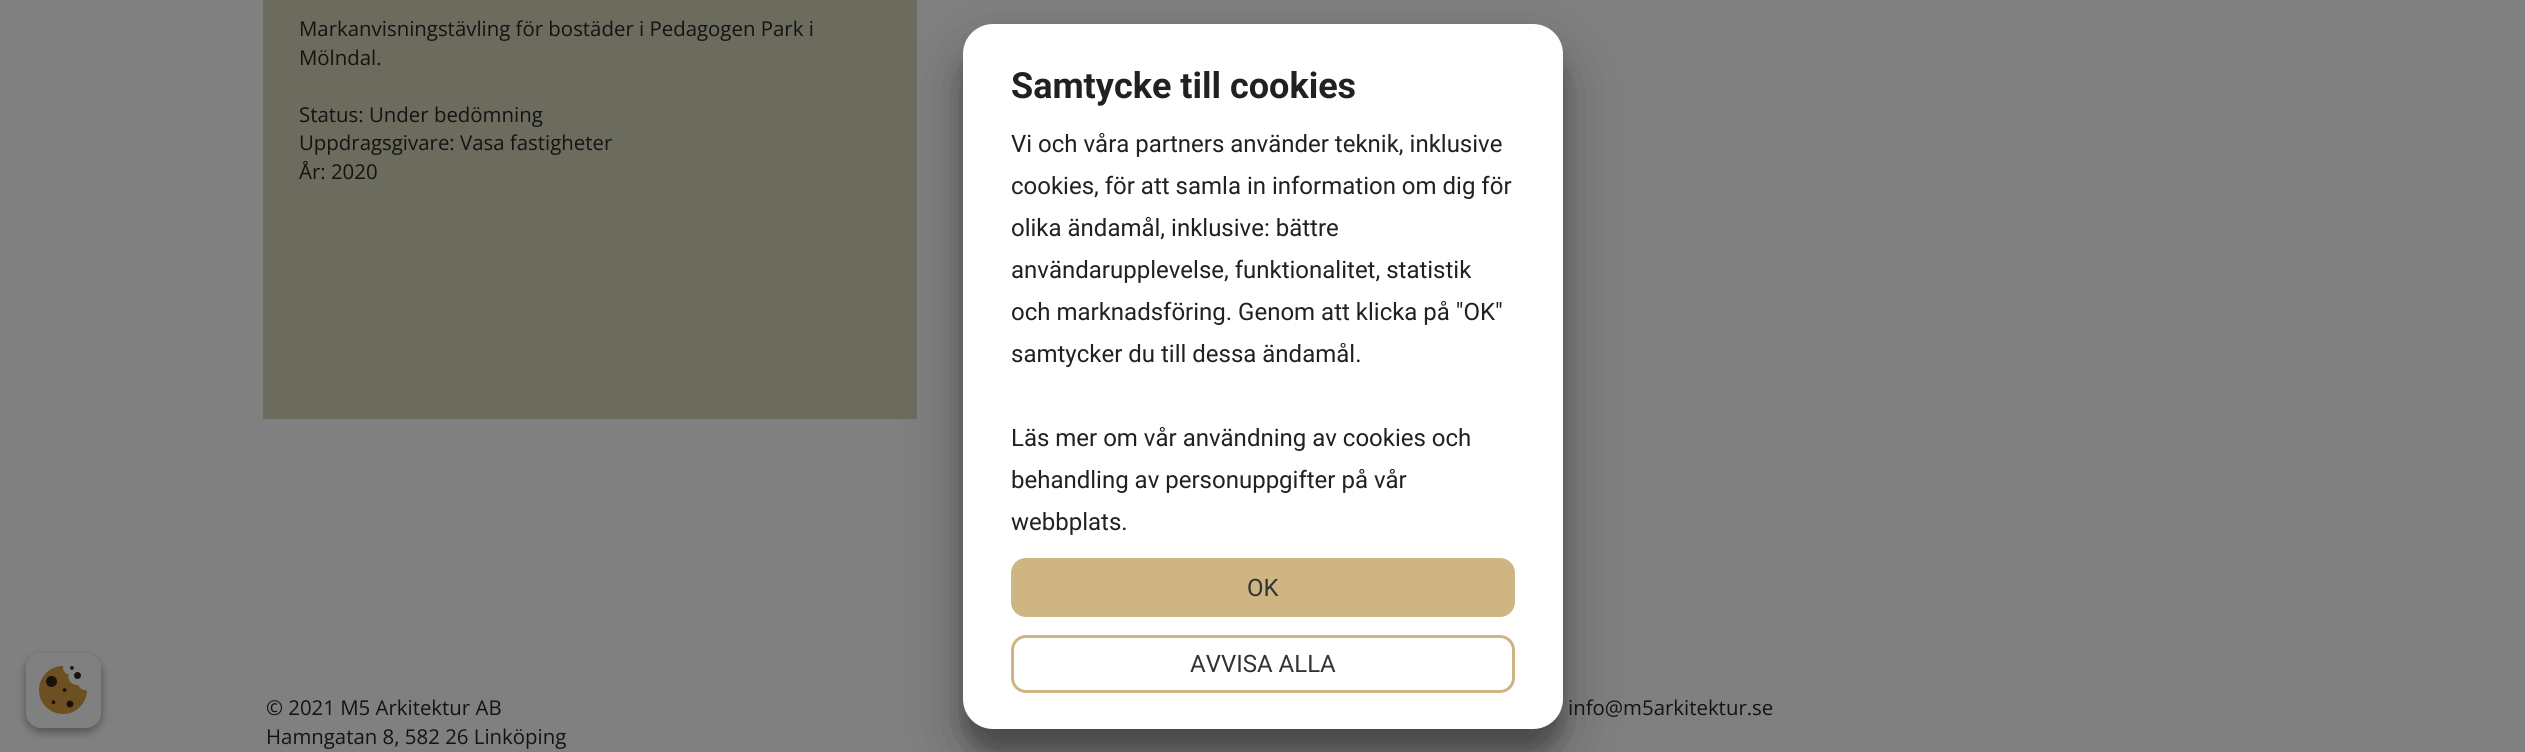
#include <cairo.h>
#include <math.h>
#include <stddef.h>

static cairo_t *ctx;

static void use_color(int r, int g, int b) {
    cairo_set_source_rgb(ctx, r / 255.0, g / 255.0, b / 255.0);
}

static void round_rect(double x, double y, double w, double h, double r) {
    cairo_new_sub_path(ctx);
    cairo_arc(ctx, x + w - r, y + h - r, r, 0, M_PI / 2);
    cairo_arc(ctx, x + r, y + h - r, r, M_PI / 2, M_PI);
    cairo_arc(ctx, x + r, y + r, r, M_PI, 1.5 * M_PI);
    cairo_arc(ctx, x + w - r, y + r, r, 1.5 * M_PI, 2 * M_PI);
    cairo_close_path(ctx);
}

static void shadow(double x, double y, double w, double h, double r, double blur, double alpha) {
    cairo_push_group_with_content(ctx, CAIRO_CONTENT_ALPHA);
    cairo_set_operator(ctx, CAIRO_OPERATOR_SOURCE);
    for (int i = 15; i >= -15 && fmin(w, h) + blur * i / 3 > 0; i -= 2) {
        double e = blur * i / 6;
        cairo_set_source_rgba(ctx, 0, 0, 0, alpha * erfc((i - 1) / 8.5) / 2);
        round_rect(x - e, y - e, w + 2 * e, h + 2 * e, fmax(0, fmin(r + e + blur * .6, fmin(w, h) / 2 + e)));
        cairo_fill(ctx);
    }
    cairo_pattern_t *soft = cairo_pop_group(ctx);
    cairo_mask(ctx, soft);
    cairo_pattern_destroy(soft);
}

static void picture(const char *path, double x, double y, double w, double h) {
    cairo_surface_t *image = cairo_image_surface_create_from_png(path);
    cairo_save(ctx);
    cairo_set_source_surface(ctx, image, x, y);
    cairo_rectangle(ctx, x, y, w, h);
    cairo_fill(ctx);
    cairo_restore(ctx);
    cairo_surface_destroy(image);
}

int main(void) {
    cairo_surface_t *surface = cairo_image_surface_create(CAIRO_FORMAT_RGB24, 2525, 752);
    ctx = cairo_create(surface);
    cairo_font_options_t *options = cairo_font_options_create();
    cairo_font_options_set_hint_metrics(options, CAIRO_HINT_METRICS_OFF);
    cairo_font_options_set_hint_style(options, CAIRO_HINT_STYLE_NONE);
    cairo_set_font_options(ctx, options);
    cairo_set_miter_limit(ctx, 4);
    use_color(128, 128, 128);
    cairo_paint(ctx);
    use_color(107, 107, 94);
    cairo_rectangle(ctx, 263, 0, 654, 419);
    cairo_fill(ctx);
    cairo_select_font_face(ctx, "Open Sans", CAIRO_FONT_SLANT_NORMAL, CAIRO_FONT_WEIGHT_NORMAL);
    cairo_set_font_size(ctx, 20.4);
    use_color(20, 18, 18);
    cairo_move_to(ctx, 299, 36);
    cairo_show_text(ctx, "Markanvisningstävling för bostäder i Pedagogen Park i");
    cairo_move_to(ctx, 299, 65);
    cairo_show_text(ctx, "Mölndal.");
    cairo_move_to(ctx, 299, 122);
    cairo_show_text(ctx, "Status: Under bedömning");
    cairo_move_to(ctx, 299, 150);
    cairo_show_text(ctx, "Uppdragsgivare: Vasa fastigheter");
    cairo_move_to(ctx, 299, 179);
    cairo_show_text(ctx, "År: 2020");
    cairo_move_to(ctx, 266, 715);
    cairo_show_text(ctx, "© 2021 M5 Arkitektur AB");
    cairo_move_to(ctx, 266, 744);
    cairo_show_text(ctx, "Hamngatan 8, 582 26 Linköping");
    cairo_move_to(ctx, 1568, 715);
    cairo_show_text(ctx, "info@m5arkitektur.se");
    use_color(0, 0, 0);
    shadow(963, 47, 600, 705, 30, 9, 0.22);
    shadow(963, 53, 600, 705, 30, 28.5, 0.3);
    use_color(255, 255, 255);
    round_rect(963, 24, 600, 705, 30);
    cairo_fill(ctx);
    cairo_select_font_face(ctx, "Roboto", CAIRO_FONT_SLANT_NORMAL, CAIRO_FONT_WEIGHT_BOLD);
    cairo_set_font_size(ctx, 36);
    use_color(33, 33, 33);
    cairo_move_to(ctx, 1011, 98);
    cairo_show_text(ctx, "Samtycke till cookies");
    cairo_select_font_face(ctx, "Roboto", CAIRO_FONT_SLANT_NORMAL, CAIRO_FONT_WEIGHT_NORMAL);
    cairo_set_font_size(ctx, 24);
    cairo_move_to(ctx, 1011, 152);
    cairo_show_text(ctx, "Vi och våra partners använder teknik, inklusive");
    cairo_move_to(ctx, 1011, 194);
    cairo_show_text(ctx, "cookies, för att samla in information om dig för");
    cairo_move_to(ctx, 1011, 236);
    cairo_show_text(ctx, "olika ändamål, inklusive: bättre");
    cairo_move_to(ctx, 1011, 278);
    cairo_show_text(ctx, "användarupplevelse, funktionalitet, statistik");
    cairo_move_to(ctx, 1011, 320);
    cairo_show_text(ctx, "och marknadsföring. Genom att klicka på \"OK\"");
    cairo_move_to(ctx, 1011, 362);
    cairo_show_text(ctx, "samtycker du till dessa ändamål.");
    cairo_move_to(ctx, 1011, 446);
    cairo_show_text(ctx, "Läs mer om vår användning av cookies och");
    cairo_move_to(ctx, 1011, 488);
    cairo_show_text(ctx, "behandling av personuppgifter på vår");
    cairo_move_to(ctx, 1011, 530);
    cairo_show_text(ctx, "webbplats.");
    use_color(206, 181, 130);
    round_rect(1012.5, 559.5, 501, 56, 13.5);
    cairo_fill_preserve(ctx);
    cairo_set_line_width(ctx, 3);
    cairo_stroke(ctx);
    use_color(51, 51, 51);
    cairo_move_to(ctx, 1247, 596);
    cairo_show_text(ctx, "OK");
    round_rect(1012.5, 636.5, 501, 55, 13.5);
    use_color(206, 181, 130);
    cairo_stroke(ctx);
    use_color(51, 51, 51);
    cairo_move_to(ctx, 1190, 672);
    cairo_show_text(ctx, "AVVISA ALLA");
    use_color(0, 0, 0);
    shadow(26, 657, 75, 75, 15, 4.5, 0.23);
    shadow(26, 657, 75, 75, 15, 4.5, 0.16);
    use_color(128, 128, 128);
    round_rect(26, 653, 75, 75, 15);
    cairo_fill(ctx);
    picture("img1.png", 39, 666, 48, 48);
    cairo_surface_write_to_png(surface, "result.png");
    cairo_font_options_destroy(options);
    cairo_destroy(ctx);
    cairo_surface_destroy(surface);
    return 0;
}
